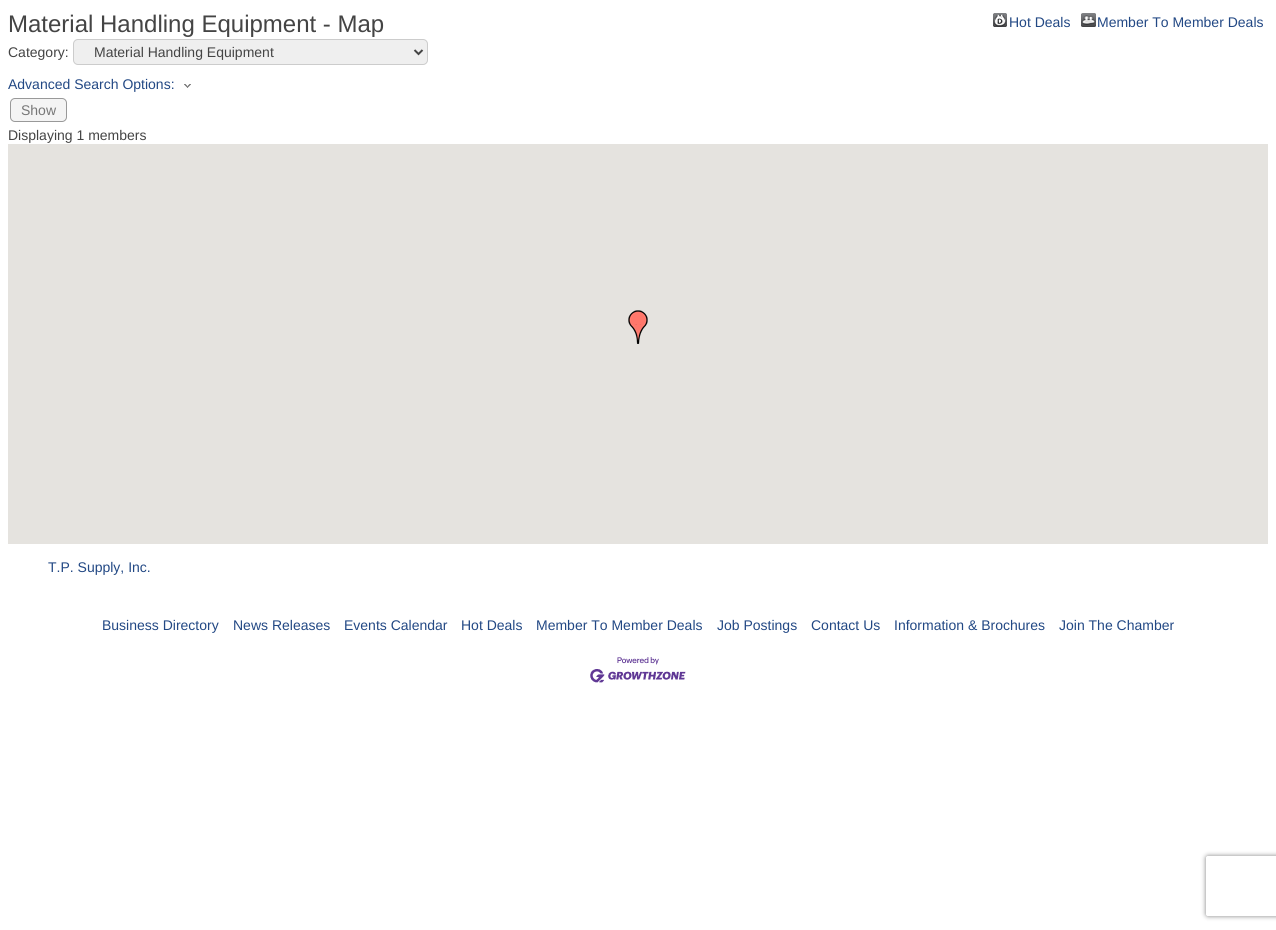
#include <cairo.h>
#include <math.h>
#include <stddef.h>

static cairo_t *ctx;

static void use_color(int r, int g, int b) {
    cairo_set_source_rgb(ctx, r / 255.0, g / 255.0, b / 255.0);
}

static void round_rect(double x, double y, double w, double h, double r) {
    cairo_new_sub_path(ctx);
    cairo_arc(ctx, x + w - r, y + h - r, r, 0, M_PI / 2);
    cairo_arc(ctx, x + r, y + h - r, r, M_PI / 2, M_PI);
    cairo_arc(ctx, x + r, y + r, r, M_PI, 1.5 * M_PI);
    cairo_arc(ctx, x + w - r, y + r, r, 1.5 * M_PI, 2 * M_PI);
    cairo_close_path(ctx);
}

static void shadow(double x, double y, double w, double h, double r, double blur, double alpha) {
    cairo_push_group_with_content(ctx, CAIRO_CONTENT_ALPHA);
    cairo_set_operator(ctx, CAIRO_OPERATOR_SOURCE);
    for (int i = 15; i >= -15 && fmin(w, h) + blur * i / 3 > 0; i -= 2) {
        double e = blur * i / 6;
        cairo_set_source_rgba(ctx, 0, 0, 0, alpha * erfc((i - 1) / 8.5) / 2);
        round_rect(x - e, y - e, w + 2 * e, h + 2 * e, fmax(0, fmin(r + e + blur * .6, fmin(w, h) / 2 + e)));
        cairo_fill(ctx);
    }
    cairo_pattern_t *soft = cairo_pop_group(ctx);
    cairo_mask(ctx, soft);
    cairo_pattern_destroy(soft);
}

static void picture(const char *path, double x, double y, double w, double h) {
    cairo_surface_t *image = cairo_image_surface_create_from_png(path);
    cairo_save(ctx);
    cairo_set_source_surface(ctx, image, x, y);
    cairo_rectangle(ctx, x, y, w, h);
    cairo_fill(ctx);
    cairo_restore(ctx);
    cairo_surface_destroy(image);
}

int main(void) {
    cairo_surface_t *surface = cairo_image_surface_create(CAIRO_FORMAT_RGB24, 1276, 930);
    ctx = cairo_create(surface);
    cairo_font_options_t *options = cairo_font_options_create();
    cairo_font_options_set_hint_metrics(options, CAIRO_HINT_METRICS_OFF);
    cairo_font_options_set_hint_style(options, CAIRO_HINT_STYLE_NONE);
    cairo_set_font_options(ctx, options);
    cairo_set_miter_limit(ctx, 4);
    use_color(255, 255, 255);
    cairo_paint(ctx);
    cairo_select_font_face(ctx, "Liberation Sans", CAIRO_FONT_SLANT_NORMAL, CAIRO_FONT_WEIGHT_NORMAL);
    cairo_set_font_size(ctx, 24);
    use_color(68, 68, 68);
    cairo_move_to(ctx, 8, 32);
    cairo_show_text(ctx, "Material Handling Equipment - Map");
    picture("img1.png", 993, 13, 14, 14);
    cairo_set_font_size(ctx, 14);
    use_color(34, 72, 132);
    cairo_move_to(ctx, 1009, 27);
    cairo_show_text(ctx, "Hot Deals");
    picture("img2.png", 1081, 13, 15, 14);
    cairo_move_to(ctx, 1097, 27);
    cairo_show_text(ctx, "Member To Member Deals");
    use_color(68, 68, 68);
    cairo_move_to(ctx, 8, 57);
    cairo_show_text(ctx, "Category:");
    use_color(239, 239, 239);
    round_rect(73.5, 39.5, 354, 25, 4.5);
    cairo_fill_preserve(ctx);
    use_color(204, 204, 204);
    cairo_set_line_width(ctx, 1);
    cairo_stroke(ctx);
    cairo_new_path(ctx);
    cairo_move_to(ctx, 414.5, 50);
    cairo_line_to(ctx, 418.5, 54);
    cairo_line_to(ctx, 422.5, 50);
    use_color(68, 68, 68);
    cairo_set_line_width(ctx, 2);
    cairo_stroke(ctx);
    cairo_move_to(ctx, 94, 57);
    cairo_show_text(ctx, "Material Handling Equipment");
    use_color(34, 72, 132);
    cairo_move_to(ctx, 8, 89);
    cairo_show_text(ctx, "Advanced Search Options:");
    picture("img3.png", 184, 84, 7, 4);
    use_color(244, 244, 244);
    round_rect(10.5, 98.5, 56, 23, 4.5);
    cairo_fill_preserve(ctx);
    use_color(153, 153, 153);
    cairo_set_line_width(ctx, 1);
    cairo_stroke(ctx);
    use_color(119, 119, 119);
    cairo_move_to(ctx, 21, 115);
    cairo_show_text(ctx, "Show");
    use_color(68, 68, 68);
    cairo_move_to(ctx, 8, 140);
    cairo_show_text(ctx, "Displaying 1 members");
    use_color(229, 227, 223);
    cairo_rectangle(ctx, 8, 144, 1260, 400);
    cairo_fill(ctx);
    picture("img4.png", 628, 310, 20, 34);
    use_color(34, 72, 132);
    cairo_move_to(ctx, 48, 572);
    cairo_show_text(ctx, "T.P. Supply, Inc.");
    cairo_move_to(ctx, 102, 630);
    cairo_show_text(ctx, "Business Directory");
    cairo_move_to(ctx, 233, 630);
    cairo_show_text(ctx, "News Releases");
    cairo_move_to(ctx, 344, 630);
    cairo_show_text(ctx, "Events Calendar");
    cairo_move_to(ctx, 461, 630);
    cairo_show_text(ctx, "Hot Deals");
    cairo_move_to(ctx, 536, 630);
    cairo_show_text(ctx, "Member To Member Deals");
    cairo_move_to(ctx, 717, 630);
    cairo_show_text(ctx, "Job Postings");
    cairo_move_to(ctx, 811, 630);
    cairo_show_text(ctx, "Contact Us");
    cairo_move_to(ctx, 894, 630);
    cairo_show_text(ctx, "Information & Brochures");
    cairo_move_to(ctx, 1059, 630);
    cairo_show_text(ctx, "Join The Chamber");
    picture("img5.png", 590, 657, 96, 26);
    cairo_save(ctx);
    cairo_set_fill_rule(ctx, CAIRO_FILL_RULE_EVEN_ODD);
    cairo_new_path(ctx);
    cairo_move_to(ctx, 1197, 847);
    cairo_line_to(ctx, 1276, 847);
    cairo_line_to(ctx, 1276, 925);
    cairo_line_to(ctx, 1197, 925);
    cairo_close_path(ctx);
    cairo_move_to(ctx, 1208, 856);
    cairo_line_to(ctx, 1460, 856);
    cairo_curve_to(ctx, 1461, 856, 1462, 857, 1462, 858);
    cairo_line_to(ctx, 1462, 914);
    cairo_curve_to(ctx, 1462, 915, 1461, 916, 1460, 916);
    cairo_line_to(ctx, 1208, 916);
    cairo_curve_to(ctx, 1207, 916, 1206, 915, 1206, 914);
    cairo_line_to(ctx, 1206, 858);
    cairo_curve_to(ctx, 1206, 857, 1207, 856, 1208, 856);
    cairo_close_path(ctx);
    cairo_clip(ctx);
    use_color(128, 128, 128);
    shadow(1206, 856, 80, 60, 2, 2.5, 1);
    cairo_restore(ctx);
    cairo_surface_write_to_png(surface, "result.png");
    cairo_font_options_destroy(options);
    cairo_destroy(ctx);
    cairo_surface_destroy(surface);
    return 0;
}
